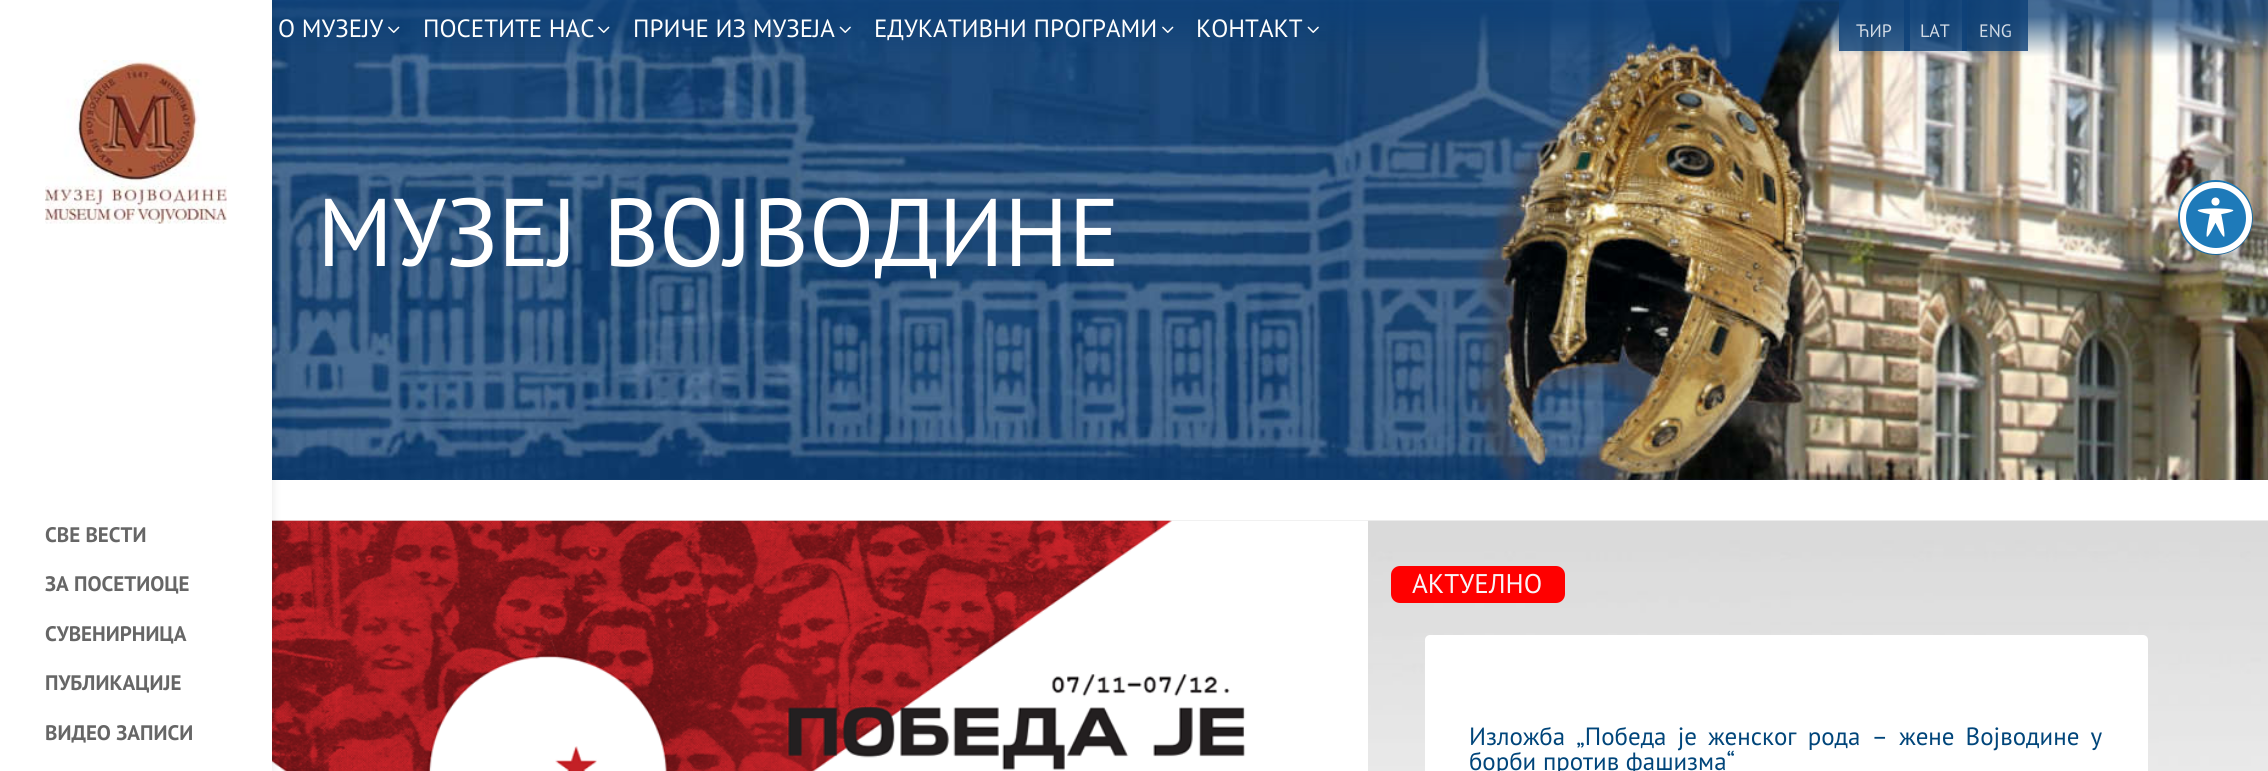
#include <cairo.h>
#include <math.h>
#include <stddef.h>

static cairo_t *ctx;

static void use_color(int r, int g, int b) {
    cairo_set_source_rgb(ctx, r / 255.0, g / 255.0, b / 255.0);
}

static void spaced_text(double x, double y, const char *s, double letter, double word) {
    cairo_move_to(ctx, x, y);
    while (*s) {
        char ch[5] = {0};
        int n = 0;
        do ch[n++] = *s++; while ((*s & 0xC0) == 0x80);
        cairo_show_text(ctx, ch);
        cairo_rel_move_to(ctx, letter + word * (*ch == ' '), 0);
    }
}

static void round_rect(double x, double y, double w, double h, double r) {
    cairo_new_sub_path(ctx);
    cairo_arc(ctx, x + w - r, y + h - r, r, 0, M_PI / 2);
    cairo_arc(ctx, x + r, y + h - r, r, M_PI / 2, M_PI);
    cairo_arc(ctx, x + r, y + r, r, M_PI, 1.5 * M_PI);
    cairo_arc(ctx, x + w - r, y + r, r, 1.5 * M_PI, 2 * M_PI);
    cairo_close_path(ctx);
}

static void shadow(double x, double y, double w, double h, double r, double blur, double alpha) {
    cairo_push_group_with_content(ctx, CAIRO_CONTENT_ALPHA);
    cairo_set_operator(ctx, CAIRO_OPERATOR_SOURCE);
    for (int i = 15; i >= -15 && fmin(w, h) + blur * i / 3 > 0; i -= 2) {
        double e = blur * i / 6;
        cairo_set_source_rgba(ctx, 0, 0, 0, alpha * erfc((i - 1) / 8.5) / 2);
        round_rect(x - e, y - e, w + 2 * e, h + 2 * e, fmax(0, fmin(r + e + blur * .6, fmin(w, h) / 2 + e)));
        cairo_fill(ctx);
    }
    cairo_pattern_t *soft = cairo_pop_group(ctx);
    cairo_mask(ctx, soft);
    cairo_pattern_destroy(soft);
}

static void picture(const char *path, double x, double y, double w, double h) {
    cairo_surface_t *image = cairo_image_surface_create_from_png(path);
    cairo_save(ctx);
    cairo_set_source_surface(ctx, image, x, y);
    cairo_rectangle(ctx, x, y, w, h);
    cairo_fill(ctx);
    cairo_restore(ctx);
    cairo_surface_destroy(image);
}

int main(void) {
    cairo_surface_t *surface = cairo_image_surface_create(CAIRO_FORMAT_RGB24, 2268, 771);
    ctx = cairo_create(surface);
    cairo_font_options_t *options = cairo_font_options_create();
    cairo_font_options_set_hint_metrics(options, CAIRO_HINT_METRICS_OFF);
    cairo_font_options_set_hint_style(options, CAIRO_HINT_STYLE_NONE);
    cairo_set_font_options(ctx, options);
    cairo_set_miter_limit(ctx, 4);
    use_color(255, 255, 255);
    cairo_paint(ctx);
    picture("img2.png", 272, 0, 1996, 480);
    picture("img8.png", 272, 520, 1996, 251);
    picture("img9.png", 272, 520, 1096, 251);
    use_color(0, 0, 0);
    shadow(0, 0, 272, 771, 0, 5, 0.1);
    use_color(255, 255, 255);
    cairo_rectangle(ctx, 0, 0, 272, 771);
    cairo_fill(ctx);
    picture("img1.png", 45, 60, 182, 164);
    cairo_select_font_face(ctx, "PT Sans", CAIRO_FONT_SLANT_NORMAL, CAIRO_FONT_WEIGHT_BOLD);
    cairo_set_font_size(ctx, 21);
    use_color(102, 102, 102);
    cairo_move_to(ctx, 45, 542);
    cairo_show_text(ctx, "СВЕ ВЕСТИ");
    cairo_move_to(ctx, 45, 591);
    cairo_show_text(ctx, "ЗА ПОСЕТИОЦЕ");
    cairo_move_to(ctx, 45, 641);
    cairo_show_text(ctx, "СУВЕНИРНИЦА");
    cairo_move_to(ctx, 45, 690);
    cairo_show_text(ctx, "ПУБЛИКАЦИЈЕ");
    cairo_move_to(ctx, 45, 740);
    cairo_show_text(ctx, "ВИДЕО ЗАПИСИ");
    cairo_select_font_face(ctx, "PT Sans", CAIRO_FONT_SLANT_NORMAL, CAIRO_FONT_WEIGHT_NORMAL);
    cairo_set_font_size(ctx, 24.95);
    use_color(255, 255, 255);
    cairo_move_to(ctx, 278, 37);
    cairo_show_text(ctx, "О МУЗЕЈУ");
    picture("img3.png", 388, 26, 12, 7);
    cairo_move_to(ctx, 423, 37);
    cairo_show_text(ctx, "ПОСЕТИТЕ НАС");
    picture("img4.png", 598, 26, 12, 7);
    cairo_move_to(ctx, 633, 37);
    cairo_show_text(ctx, "ПРИЧЕ ИЗ МУЗЕЈА");
    picture("img5.png", 839, 26, 12, 7);
    cairo_move_to(ctx, 874, 37);
    cairo_show_text(ctx, "ЕДУКАТИВНИ ПРОГРАМИ");
    picture("img6.png", 1162, 26, 12, 7);
    cairo_move_to(ctx, 1196, 37);
    cairo_show_text(ctx, "КОНТАКТ");
    picture("img7.png", 1307, 26, 12, 7);
    cairo_set_source_rgba(ctx, 0.051, 0.251, 0.467, 0.8);
    cairo_rectangle(ctx, 1839, 0, 71, 51);
    cairo_fill(ctx);
    cairo_set_font_size(ctx, 18);
    use_color(210, 219, 229);
    cairo_move_to(ctx, 1856, 37);
    cairo_show_text(ctx, "ЋИР");
    cairo_set_source_rgba(ctx, 0.051, 0.251, 0.467, 0.8);
    cairo_rectangle(ctx, 1904, 0, 63, 51);
    cairo_fill(ctx);
    use_color(210, 219, 229);
    cairo_move_to(ctx, 1920, 37);
    cairo_show_text(ctx, "LAT");
    cairo_set_source_rgba(ctx, 0.051, 0.251, 0.467, 0.8);
    cairo_rectangle(ctx, 1962, 0, 66, 51);
    cairo_fill(ctx);
    use_color(210, 219, 229);
    cairo_move_to(ctx, 1979, 37);
    cairo_show_text(ctx, "ENG");
    cairo_set_font_size(ctx, 96);
    use_color(255, 255, 255);
    cairo_move_to(ctx, 317, 266);
    cairo_show_text(ctx, "МУЗЕЈ ВОЈВОДИНЕ");
    use_color(255, 0, 0);
    round_rect(1391, 566, 174, 37, 9);
    cairo_fill(ctx);
    cairo_set_font_size(ctx, 27);
    use_color(249, 244, 247);
    cairo_move_to(ctx, 1412, 593);
    cairo_show_text(ctx, "АКТУЕЛНО");
    use_color(255, 255, 255);
    round_rect(1425, 635, 723, 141, 5);
    cairo_fill(ctx);
    cairo_set_font_size(ctx, 24.95);
    use_color(0, 69, 122);
    spaced_text(1469, 745, "Изложба „Победа је женског рода – жене Војводине у", 0, 4.5);
    cairo_move_to(ctx, 1469, 770);
    cairo_show_text(ctx, "борби против фашизма“");
    cairo_new_path(ctx);
    cairo_arc(ctx, 2215.5, 217.5, 36.5, 0, 2 * M_PI);
    use_color(30, 122, 185);
    cairo_stroke(ctx);
    use_color(0, 0, 0);
    shadow(2189, 194, 72, 72, 36, 12, 0.2);
    use_color(30, 122, 185);
    cairo_arc(ctx, 2216, 218, 33, 0, 2 * M_PI);
    cairo_fill_preserve(ctx);
    use_color(255, 255, 255);
    cairo_set_line_width(ctx, 6);
    cairo_stroke(ctx);
    picture("img10.png", 2197, 197, 37, 40);
    cairo_surface_write_to_png(surface, "result.png");
    cairo_font_options_destroy(options);
    cairo_destroy(ctx);
    cairo_surface_destroy(surface);
    return 0;
}
